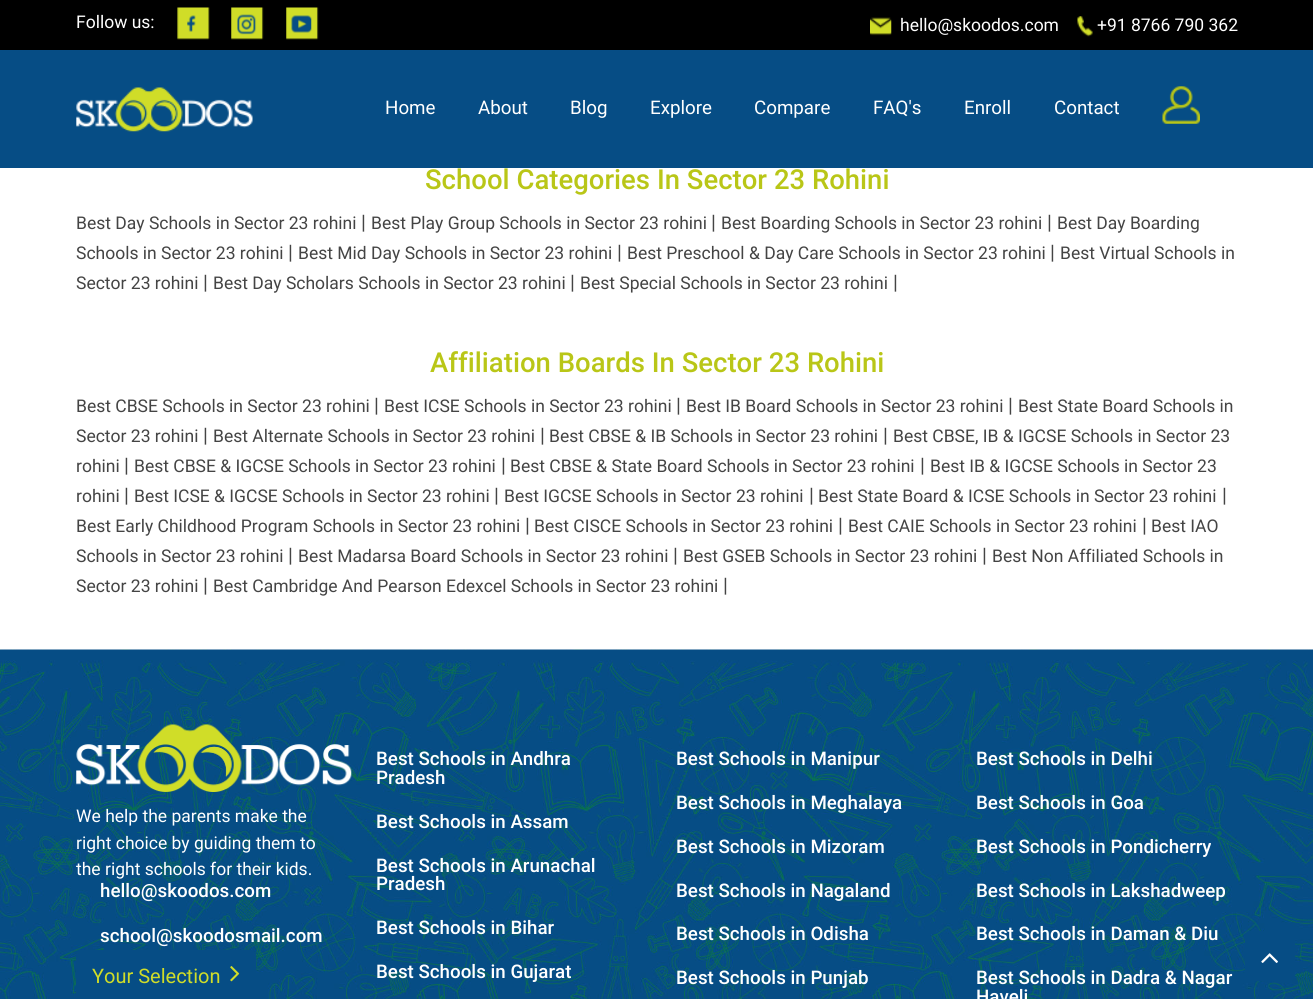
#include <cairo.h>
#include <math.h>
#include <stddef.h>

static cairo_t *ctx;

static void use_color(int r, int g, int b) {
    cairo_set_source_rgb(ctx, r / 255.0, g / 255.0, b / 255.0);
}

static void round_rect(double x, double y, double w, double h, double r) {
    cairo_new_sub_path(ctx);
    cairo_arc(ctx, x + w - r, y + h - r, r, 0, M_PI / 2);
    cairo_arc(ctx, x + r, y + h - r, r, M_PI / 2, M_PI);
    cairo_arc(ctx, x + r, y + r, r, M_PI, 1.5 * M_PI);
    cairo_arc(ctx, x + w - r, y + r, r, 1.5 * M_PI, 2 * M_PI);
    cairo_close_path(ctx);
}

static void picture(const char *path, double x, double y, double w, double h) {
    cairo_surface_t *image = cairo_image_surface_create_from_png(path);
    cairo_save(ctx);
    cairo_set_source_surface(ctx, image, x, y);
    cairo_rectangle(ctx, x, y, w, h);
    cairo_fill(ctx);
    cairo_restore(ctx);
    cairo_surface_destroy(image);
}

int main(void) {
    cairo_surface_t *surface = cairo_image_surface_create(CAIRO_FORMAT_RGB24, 1313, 999);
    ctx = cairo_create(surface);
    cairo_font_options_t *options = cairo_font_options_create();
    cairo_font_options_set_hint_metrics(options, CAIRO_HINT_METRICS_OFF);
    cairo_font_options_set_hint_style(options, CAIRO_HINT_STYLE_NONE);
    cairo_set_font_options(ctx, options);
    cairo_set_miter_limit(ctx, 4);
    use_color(255, 255, 255);
    cairo_paint(ctx);
    use_color(0, 0, 0);
    cairo_rectangle(ctx, 0, 0, 1313, 50);
    cairo_fill(ctx);
    cairo_select_font_face(ctx, "Roboto", CAIRO_FONT_SLANT_NORMAL, CAIRO_FONT_WEIGHT_NORMAL);
    cairo_set_font_size(ctx, 17.5);
    use_color(255, 255, 255);
    cairo_move_to(ctx, 76, 28);
    cairo_show_text(ctx, "Follow us:");
    picture("img1.png", 177, 7, 33, 33);
    picture("img2.png", 231, 7, 33, 33);
    picture("img3.png", 286, 7, 33, 33);
    picture("img4.png", 870, 17, 22, 19);
    cairo_move_to(ctx, 900, 31);
    cairo_show_text(ctx, "hello@skoodos.com");
    picture("img5.png", 1077, 16, 16, 21);
    cairo_move_to(ctx, 1097, 31);
    cairo_show_text(ctx, "+91 8766 790 362");
    use_color(6, 77, 133);
    cairo_rectangle(ctx, 0, 50, 1313, 118);
    cairo_fill(ctx);
    picture("img6.png", 76, 87, 177, 45);
    cairo_set_font_size(ctx, 18.75);
    use_color(255, 255, 255);
    cairo_move_to(ctx, 385, 114);
    cairo_show_text(ctx, "Home");
    cairo_move_to(ctx, 478, 114);
    cairo_show_text(ctx, "About");
    cairo_move_to(ctx, 570, 114);
    cairo_show_text(ctx, "Blog");
    cairo_move_to(ctx, 650, 114);
    cairo_show_text(ctx, "Explore");
    cairo_move_to(ctx, 754, 114);
    cairo_show_text(ctx, "Compare");
    cairo_move_to(ctx, 873, 114);
    cairo_show_text(ctx, "FAQ's");
    cairo_move_to(ctx, 964, 114);
    cairo_show_text(ctx, "Enroll");
    cairo_move_to(ctx, 1054, 114);
    cairo_show_text(ctx, "Contact");
    picture("img7.png", 1162, 86, 38, 38);
    cairo_select_font_face(ctx, "Roboto Medium", CAIRO_FONT_SLANT_NORMAL, CAIRO_FONT_WEIGHT_NORMAL);
    cairo_set_font_size(ctx, 27.5);
    use_color(185, 198, 23);
    cairo_move_to(ctx, 425, 189);
    cairo_show_text(ctx, "School Categories In Sector 23 Rohini");
    cairo_select_font_face(ctx, "Roboto", CAIRO_FONT_SLANT_NORMAL, CAIRO_FONT_WEIGHT_NORMAL);
    cairo_set_font_size(ctx, 17.5);
    use_color(68, 68, 68);
    cairo_move_to(ctx, 76, 229);
    cairo_show_text(ctx, "Best Day Schools in Sector 23 rohini");
    cairo_set_font_size(ctx, 20);
    cairo_move_to(ctx, 361, 229);
    cairo_show_text(ctx, "|");
    cairo_set_font_size(ctx, 17.5);
    cairo_move_to(ctx, 371, 229);
    cairo_show_text(ctx, "Best Play Group Schools in Sector 23 rohini");
    cairo_set_font_size(ctx, 20);
    cairo_move_to(ctx, 711, 229);
    cairo_show_text(ctx, "|");
    cairo_set_font_size(ctx, 17.5);
    cairo_move_to(ctx, 721, 229);
    cairo_show_text(ctx, "Best Boarding Schools in Sector 23 rohini");
    cairo_set_font_size(ctx, 20);
    cairo_move_to(ctx, 1047, 229);
    cairo_show_text(ctx, "|");
    cairo_set_font_size(ctx, 17.5);
    cairo_move_to(ctx, 1057, 229);
    cairo_show_text(ctx, "Best Day Boarding");
    cairo_move_to(ctx, 76, 259);
    cairo_show_text(ctx, "Schools in Sector 23 rohini");
    cairo_set_font_size(ctx, 20);
    cairo_move_to(ctx, 288, 259);
    cairo_show_text(ctx, "|");
    cairo_set_font_size(ctx, 17.5);
    cairo_move_to(ctx, 298, 259);
    cairo_show_text(ctx, "Best Mid Day Schools in Sector 23 rohini");
    cairo_set_font_size(ctx, 20);
    cairo_move_to(ctx, 617, 259);
    cairo_show_text(ctx, "|");
    cairo_set_font_size(ctx, 17.5);
    cairo_move_to(ctx, 627, 259);
    cairo_show_text(ctx, "Best Preschool & Day Care Schools in Sector 23 rohini");
    cairo_set_font_size(ctx, 20);
    cairo_move_to(ctx, 1050, 259);
    cairo_show_text(ctx, "|");
    cairo_set_font_size(ctx, 17.5);
    cairo_move_to(ctx, 1060, 259);
    cairo_show_text(ctx, "Best Virtual Schools in");
    cairo_move_to(ctx, 76, 289);
    cairo_show_text(ctx, "Sector 23 rohini");
    cairo_set_font_size(ctx, 20);
    cairo_move_to(ctx, 203, 289);
    cairo_show_text(ctx, "|");
    cairo_set_font_size(ctx, 17.5);
    cairo_move_to(ctx, 213, 289);
    cairo_show_text(ctx, "Best Day Scholars Schools in Sector 23 rohini");
    cairo_set_font_size(ctx, 20);
    cairo_move_to(ctx, 570, 289);
    cairo_show_text(ctx, "|");
    cairo_set_font_size(ctx, 17.5);
    cairo_move_to(ctx, 580, 289);
    cairo_show_text(ctx, "Best Special Schools in Sector 23 rohini");
    cairo_set_font_size(ctx, 20);
    cairo_move_to(ctx, 893, 289);
    cairo_show_text(ctx, "|");
    cairo_select_font_face(ctx, "Roboto Medium", CAIRO_FONT_SLANT_NORMAL, CAIRO_FONT_WEIGHT_NORMAL);
    cairo_set_font_size(ctx, 27.5);
    use_color(185, 198, 23);
    cairo_move_to(ctx, 430, 372);
    cairo_show_text(ctx, "Affiliation Boards In Sector 23 Rohini");
    cairo_select_font_face(ctx, "Roboto", CAIRO_FONT_SLANT_NORMAL, CAIRO_FONT_WEIGHT_NORMAL);
    cairo_set_font_size(ctx, 17.5);
    use_color(68, 68, 68);
    cairo_move_to(ctx, 76, 412);
    cairo_show_text(ctx, "Best CBSE Schools in Sector 23 rohini");
    cairo_set_font_size(ctx, 20);
    cairo_move_to(ctx, 374, 412);
    cairo_show_text(ctx, "|");
    cairo_set_font_size(ctx, 17.5);
    cairo_move_to(ctx, 384, 412);
    cairo_show_text(ctx, "Best ICSE Schools in Sector 23 rohini");
    cairo_set_font_size(ctx, 20);
    cairo_move_to(ctx, 676, 412);
    cairo_show_text(ctx, "|");
    cairo_set_font_size(ctx, 17.5);
    cairo_move_to(ctx, 686, 412);
    cairo_show_text(ctx, "Best IB Board Schools in Sector 23 rohini");
    cairo_set_font_size(ctx, 20);
    cairo_move_to(ctx, 1008, 412);
    cairo_show_text(ctx, "|");
    cairo_set_font_size(ctx, 17.5);
    cairo_move_to(ctx, 1018, 412);
    cairo_show_text(ctx, "Best State Board Schools in");
    cairo_move_to(ctx, 76, 442);
    cairo_show_text(ctx, "Sector 23 rohini");
    cairo_set_font_size(ctx, 20);
    cairo_move_to(ctx, 203, 442);
    cairo_show_text(ctx, "|");
    cairo_set_font_size(ctx, 17.5);
    cairo_move_to(ctx, 213, 442);
    cairo_show_text(ctx, "Best Alternate Schools in Sector 23 rohini");
    cairo_set_font_size(ctx, 20);
    cairo_move_to(ctx, 540, 442);
    cairo_show_text(ctx, "|");
    cairo_set_font_size(ctx, 17.5);
    cairo_move_to(ctx, 549, 442);
    cairo_show_text(ctx, "Best CBSE & IB Schools in Sector 23 rohini");
    cairo_set_font_size(ctx, 20);
    cairo_move_to(ctx, 883, 442);
    cairo_show_text(ctx, "|");
    cairo_set_font_size(ctx, 17.5);
    cairo_move_to(ctx, 893, 442);
    cairo_show_text(ctx, "Best CBSE, IB & IGCSE Schools in Sector 23");
    cairo_move_to(ctx, 76, 472);
    cairo_show_text(ctx, "rohini");
    cairo_set_font_size(ctx, 20);
    cairo_move_to(ctx, 124, 472);
    cairo_show_text(ctx, "|");
    cairo_set_font_size(ctx, 17.5);
    cairo_move_to(ctx, 134, 472);
    cairo_show_text(ctx, "Best CBSE & IGCSE Schools in Sector 23 rohini");
    cairo_set_font_size(ctx, 20);
    cairo_move_to(ctx, 501, 472);
    cairo_show_text(ctx, "|");
    cairo_set_font_size(ctx, 17.5);
    cairo_move_to(ctx, 510, 472);
    cairo_show_text(ctx, "Best CBSE & State Board Schools in Sector 23 rohini");
    cairo_set_font_size(ctx, 20);
    cairo_move_to(ctx, 920, 472);
    cairo_show_text(ctx, "|");
    cairo_set_font_size(ctx, 17.5);
    cairo_move_to(ctx, 930, 472);
    cairo_show_text(ctx, "Best IB & IGCSE Schools in Sector 23");
    cairo_move_to(ctx, 76, 502);
    cairo_show_text(ctx, "rohini");
    cairo_set_font_size(ctx, 20);
    cairo_move_to(ctx, 124, 502);
    cairo_show_text(ctx, "|");
    cairo_set_font_size(ctx, 17.5);
    cairo_move_to(ctx, 134, 502);
    cairo_show_text(ctx, "Best ICSE & IGCSE Schools in Sector 23 rohini");
    cairo_set_font_size(ctx, 20);
    cairo_move_to(ctx, 494, 502);
    cairo_show_text(ctx, "|");
    cairo_set_font_size(ctx, 17.5);
    cairo_move_to(ctx, 504, 502);
    cairo_show_text(ctx, "Best IGCSE Schools in Sector 23 rohini");
    cairo_set_font_size(ctx, 20);
    cairo_move_to(ctx, 809, 502);
    cairo_show_text(ctx, "|");
    cairo_set_font_size(ctx, 17.5);
    cairo_move_to(ctx, 818, 502);
    cairo_show_text(ctx, "Best State Board & ICSE Schools in Sector 23 rohini");
    cairo_set_font_size(ctx, 20);
    cairo_move_to(ctx, 1222, 502);
    cairo_show_text(ctx, "|");
    cairo_set_font_size(ctx, 17.5);
    cairo_move_to(ctx, 76, 532);
    cairo_show_text(ctx, "Best Early Childhood Program Schools in Sector 23 rohini");
    cairo_set_font_size(ctx, 20);
    cairo_move_to(ctx, 525, 532);
    cairo_show_text(ctx, "|");
    cairo_set_font_size(ctx, 17.5);
    cairo_move_to(ctx, 534, 532);
    cairo_show_text(ctx, "Best CISCE Schools in Sector 23 rohini");
    cairo_set_font_size(ctx, 20);
    cairo_move_to(ctx, 838, 532);
    cairo_show_text(ctx, "|");
    cairo_set_font_size(ctx, 17.5);
    cairo_move_to(ctx, 848, 532);
    cairo_show_text(ctx, "Best CAIE Schools in Sector 23 rohini");
    cairo_set_font_size(ctx, 20);
    cairo_move_to(ctx, 1142, 532);
    cairo_show_text(ctx, "|");
    cairo_set_font_size(ctx, 17.5);
    cairo_move_to(ctx, 1151, 532);
    cairo_show_text(ctx, "Best IAO");
    cairo_move_to(ctx, 76, 562);
    cairo_show_text(ctx, "Schools in Sector 23 rohini");
    cairo_set_font_size(ctx, 20);
    cairo_move_to(ctx, 288, 562);
    cairo_show_text(ctx, "|");
    cairo_set_font_size(ctx, 17.5);
    cairo_move_to(ctx, 298, 562);
    cairo_show_text(ctx, "Best Madarsa Board Schools in Sector 23 rohini");
    cairo_set_font_size(ctx, 20);
    cairo_move_to(ctx, 673, 562);
    cairo_show_text(ctx, "|");
    cairo_set_font_size(ctx, 17.5);
    cairo_move_to(ctx, 683, 562);
    cairo_show_text(ctx, "Best GSEB Schools in Sector 23 rohini");
    cairo_set_font_size(ctx, 20);
    cairo_move_to(ctx, 982, 562);
    cairo_show_text(ctx, "|");
    cairo_set_font_size(ctx, 17.5);
    cairo_move_to(ctx, 992, 562);
    cairo_show_text(ctx, "Best Non Affiliated Schools in");
    cairo_move_to(ctx, 76, 592);
    cairo_show_text(ctx, "Sector 23 rohini");
    cairo_set_font_size(ctx, 20);
    cairo_move_to(ctx, 203, 592);
    cairo_show_text(ctx, "|");
    cairo_set_font_size(ctx, 17.5);
    cairo_move_to(ctx, 213, 592);
    cairo_show_text(ctx, "Best Cambridge And Pearson Edexcel Schools in Sector 23 rohini");
    cairo_set_font_size(ctx, 20);
    cairo_move_to(ctx, 723, 592);
    cairo_show_text(ctx, "|");
    picture("img8.png", 0, 649, 1313, 350);
    picture("img9.png", 76, 724, 276, 68);
    cairo_set_font_size(ctx, 17.5);
    use_color(255, 255, 255);
    cairo_move_to(ctx, 76, 822);
    cairo_show_text(ctx, "We help the parents make the");
    cairo_move_to(ctx, 76, 849);
    cairo_show_text(ctx, "right choice by guiding them to");
    cairo_move_to(ctx, 76, 875);
    cairo_show_text(ctx, "the right schools for their kids.");
    cairo_select_font_face(ctx, "Roboto Medium", CAIRO_FONT_SLANT_NORMAL, CAIRO_FONT_WEIGHT_NORMAL);
    cairo_set_font_size(ctx, 18.75);
    cairo_move_to(ctx, 100, 897);
    cairo_show_text(ctx, "hello@skoodos.com");
    cairo_move_to(ctx, 100, 942);
    cairo_show_text(ctx, "school@skoodosmail.com");
    cairo_move_to(ctx, 376, 765);
    cairo_show_text(ctx, "Best Schools in Andhra");
    cairo_move_to(ctx, 376, 784);
    cairo_show_text(ctx, "Pradesh");
    cairo_move_to(ctx, 376, 828);
    cairo_show_text(ctx, "Best Schools in Assam");
    cairo_move_to(ctx, 376, 872);
    cairo_show_text(ctx, "Best Schools in Arunachal");
    cairo_move_to(ctx, 376, 890);
    cairo_show_text(ctx, "Pradesh");
    cairo_move_to(ctx, 376, 934);
    cairo_show_text(ctx, "Best Schools in Bihar");
    cairo_move_to(ctx, 376, 978);
    cairo_show_text(ctx, "Best Schools in Gujarat");
    cairo_move_to(ctx, 676, 765);
    cairo_show_text(ctx, "Best Schools in Manipur");
    cairo_move_to(ctx, 676, 809);
    cairo_show_text(ctx, "Best Schools in Meghalaya");
    cairo_move_to(ctx, 676, 853);
    cairo_show_text(ctx, "Best Schools in Mizoram");
    cairo_move_to(ctx, 676, 897);
    cairo_show_text(ctx, "Best Schools in Nagaland");
    cairo_move_to(ctx, 676, 940);
    cairo_show_text(ctx, "Best Schools in Odisha");
    cairo_move_to(ctx, 676, 984);
    cairo_show_text(ctx, "Best Schools in Punjab");
    cairo_move_to(ctx, 976, 765);
    cairo_show_text(ctx, "Best Schools in Delhi");
    cairo_move_to(ctx, 976, 809);
    cairo_show_text(ctx, "Best Schools in Goa");
    cairo_move_to(ctx, 976, 853);
    cairo_show_text(ctx, "Best Schools in Pondicherry");
    cairo_move_to(ctx, 976, 897);
    cairo_show_text(ctx, "Best Schools in Lakshadweep");
    cairo_move_to(ctx, 976, 940);
    cairo_show_text(ctx, "Best Schools in Daman & Diu");
    cairo_move_to(ctx, 976, 984);
    cairo_show_text(ctx, "Best Schools in Dadra & Nagar");
    cairo_move_to(ctx, 976, 1003);
    cairo_show_text(ctx, "Haveli");
    use_color(6, 77, 133);
    round_rect(1245, 931, 50, 50, 5);
    cairo_fill(ctx);
    picture("img10.png", 1261, 953, 17, 10);
    round_rect(76, 950, 180, 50, 5);
    cairo_fill(ctx);
    cairo_select_font_face(ctx, "Roboto", CAIRO_FONT_SLANT_NORMAL, CAIRO_FONT_WEIGHT_NORMAL);
    cairo_set_font_size(ctx, 20);
    use_color(208, 221, 40);
    cairo_move_to(ctx, 92, 983);
    cairo_show_text(ctx, "Your Selection");
    picture("img11.png", 230, 966, 10, 16);
    cairo_surface_write_to_png(surface, "result.png");
    cairo_font_options_destroy(options);
    cairo_destroy(ctx);
    cairo_surface_destroy(surface);
    return 0;
}
